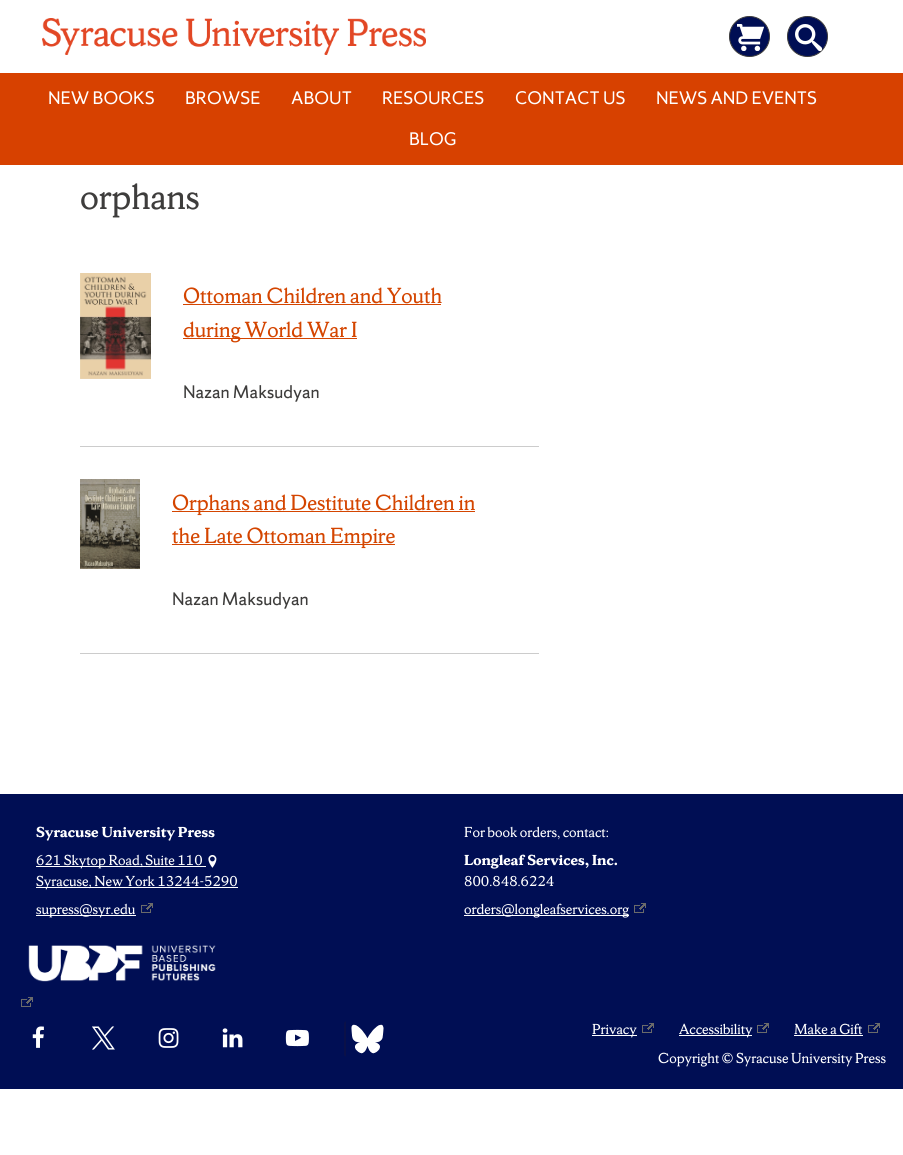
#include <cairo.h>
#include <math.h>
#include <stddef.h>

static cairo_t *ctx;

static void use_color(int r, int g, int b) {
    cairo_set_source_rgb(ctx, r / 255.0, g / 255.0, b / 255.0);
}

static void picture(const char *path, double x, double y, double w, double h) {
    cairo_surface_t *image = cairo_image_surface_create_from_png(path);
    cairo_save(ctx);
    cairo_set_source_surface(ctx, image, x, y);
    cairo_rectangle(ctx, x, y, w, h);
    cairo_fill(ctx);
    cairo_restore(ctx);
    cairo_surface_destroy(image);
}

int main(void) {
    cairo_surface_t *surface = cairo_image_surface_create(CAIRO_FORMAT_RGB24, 903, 1155);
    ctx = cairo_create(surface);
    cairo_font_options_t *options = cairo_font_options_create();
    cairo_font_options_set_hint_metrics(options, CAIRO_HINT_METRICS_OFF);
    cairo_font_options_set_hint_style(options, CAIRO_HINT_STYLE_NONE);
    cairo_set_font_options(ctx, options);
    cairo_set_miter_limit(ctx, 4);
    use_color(255, 255, 255);
    cairo_paint(ctx);
    picture("img1.png", 42, 18, 384, 37);
    use_color(0, 14, 84);
    cairo_arc(ctx, 749.5, 36.5, 20, 0, 2 * M_PI);
    cairo_fill_preserve(ctx);
    use_color(62, 61, 60);
    cairo_set_line_width(ctx, 1);
    cairo_stroke(ctx);
    picture("img2.png", 737, 24, 27, 27);
    use_color(0, 14, 84);
    cairo_arc(ctx, 807.5, 36.5, 20, 0, 2 * M_PI);
    cairo_fill_preserve(ctx);
    use_color(62, 61, 60);
    cairo_stroke(ctx);
    picture("img3.png", 795, 24, 27, 27);
    use_color(215, 65, 0);
    cairo_rectangle(ctx, 0, 73, 903, 92);
    cairo_fill(ctx);
    cairo_select_font_face(ctx, "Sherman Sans", CAIRO_FONT_SLANT_NORMAL, CAIRO_FONT_WEIGHT_NORMAL);
    cairo_set_font_size(ctx, 16);
    use_color(255, 255, 255);
    cairo_move_to(ctx, 48, 104);
    cairo_show_text(ctx, "NEW BOOKS");
    cairo_move_to(ctx, 185, 104);
    cairo_show_text(ctx, "BROWSE");
    cairo_move_to(ctx, 291, 104);
    cairo_show_text(ctx, "ABOUT");
    cairo_move_to(ctx, 382, 104);
    cairo_show_text(ctx, "RESOURCES");
    cairo_move_to(ctx, 515, 104);
    cairo_show_text(ctx, "CONTACT US");
    cairo_move_to(ctx, 656, 104);
    cairo_show_text(ctx, "NEWS AND EVENTS");
    cairo_move_to(ctx, 409, 145);
    cairo_show_text(ctx, "BLOG");
    cairo_select_font_face(ctx, "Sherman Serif", CAIRO_FONT_SLANT_NORMAL, CAIRO_FONT_WEIGHT_NORMAL);
    cairo_set_font_size(ctx, 32);
    use_color(62, 61, 60);
    cairo_move_to(ctx, 80, 209);
    cairo_show_text(ctx, "orphans");
    picture("img4.png", 80, 273, 71, 106);
    cairo_set_font_size(ctx, 19.25);
    use_color(212, 69, 0);
    cairo_move_to(ctx, 183, 303);
    cairo_show_text(ctx, "Ottoman Children and Youth");
    cairo_rectangle(ctx, 183, 304, 258, 1);
    cairo_fill(ctx);
    cairo_rectangle(ctx, 183, 338, 174, 1);
    cairo_fill(ctx);
    cairo_move_to(ctx, 183, 337);
    cairo_show_text(ctx, "during World War I");
    cairo_select_font_face(ctx, "Sherman Sans", CAIRO_FONT_SLANT_NORMAL, CAIRO_FONT_WEIGHT_NORMAL);
    cairo_set_font_size(ctx, 16);
    use_color(62, 61, 60);
    cairo_move_to(ctx, 183, 398);
    cairo_show_text(ctx, "Nazan Maksudyan");
    use_color(204, 204, 204);
    cairo_rectangle(ctx, 80, 446, 459, 1);
    cairo_fill(ctx);
    picture("img5.png", 80, 479, 60, 90);
    use_color(212, 69, 0);
    cairo_rectangle(ctx, 172, 511, 303, 1);
    cairo_fill(ctx);
    cairo_select_font_face(ctx, "Sherman Serif", CAIRO_FONT_SLANT_NORMAL, CAIRO_FONT_WEIGHT_NORMAL);
    cairo_set_font_size(ctx, 19.25);
    cairo_move_to(ctx, 172, 510);
    cairo_show_text(ctx, "Orphans and Destitute Children in");
    cairo_rectangle(ctx, 172, 544, 223, 1);
    cairo_fill(ctx);
    cairo_move_to(ctx, 172, 543);
    cairo_show_text(ctx, "the Late Ottoman Empire");
    cairo_select_font_face(ctx, "Sherman Sans", CAIRO_FONT_SLANT_NORMAL, CAIRO_FONT_WEIGHT_NORMAL);
    cairo_set_font_size(ctx, 16);
    use_color(62, 61, 60);
    cairo_move_to(ctx, 172, 605);
    cairo_show_text(ctx, "Nazan Maksudyan");
    use_color(204, 204, 204);
    cairo_rectangle(ctx, 80, 653, 459, 1);
    cairo_fill(ctx);
    use_color(0, 14, 84);
    cairo_rectangle(ctx, 0, 794, 903, 295);
    cairo_fill(ctx);
    cairo_select_font_face(ctx, "Sherman Serif", CAIRO_FONT_SLANT_NORMAL, CAIRO_FONT_WEIGHT_BOLD);
    cairo_set_font_size(ctx, 12.75);
    use_color(255, 255, 255);
    cairo_move_to(ctx, 36, 837);
    cairo_show_text(ctx, "Syracuse University Press");
    cairo_rectangle(ctx, 36, 866, 170, 1);
    cairo_fill(ctx);
    cairo_select_font_face(ctx, "Sherman Serif", CAIRO_FONT_SLANT_NORMAL, CAIRO_FONT_WEIGHT_NORMAL);
    cairo_move_to(ctx, 36, 865);
    cairo_show_text(ctx, "621 Skytop Road, Suite 110");
    picture("img6.png", 208, 855, 9, 13);
    cairo_rectangle(ctx, 36, 887, 202, 1);
    cairo_fill(ctx);
    cairo_move_to(ctx, 36, 886);
    cairo_show_text(ctx, "Syracuse, New York 13244-5290");
    cairo_rectangle(ctx, 36, 915, 100, 1);
    cairo_fill(ctx);
    cairo_move_to(ctx, 36, 914);
    cairo_show_text(ctx, "supress@syr.edu");
    picture("img7.png", 141, 903, 12, 10);
    cairo_move_to(ctx, 464, 837);
    cairo_show_text(ctx, "For book orders, contact:");
    cairo_select_font_face(ctx, "Sherman Serif", CAIRO_FONT_SLANT_NORMAL, CAIRO_FONT_WEIGHT_BOLD);
    cairo_move_to(ctx, 464, 865);
    cairo_show_text(ctx, "Longleaf Services, Inc.");
    cairo_select_font_face(ctx, "Sherman Serif", CAIRO_FONT_SLANT_NORMAL, CAIRO_FONT_WEIGHT_NORMAL);
    cairo_move_to(ctx, 464, 886);
    cairo_show_text(ctx, "800.848.6224");
    cairo_rectangle(ctx, 464, 915, 165, 1);
    cairo_fill(ctx);
    cairo_move_to(ctx, 464, 914);
    cairo_show_text(ctx, "orders@longleafservices.org");
    picture("img7.png", 634, 903, 12, 10);
    picture("img8.png", 28, 945, 188, 37);
    picture("img7.png", 21, 997, 12, 10);
    picture("img9.png", 32, 1026, 12, 22);
    picture("img10.png", 92, 1026, 23, 24);
    picture("img11.png", 158, 1028, 21, 20);
    picture("img12.png", 222, 1028, 21, 20);
    picture("img13.png", 285, 1029, 24, 18);
    picture("img14.png", 344, 1021, 40, 36);
    cairo_rectangle(ctx, 592, 1035, 45, 1);
    cairo_fill(ctx);
    cairo_move_to(ctx, 592, 1034);
    cairo_show_text(ctx, "Privacy");
    picture("img7.png", 642, 1023, 12, 10);
    cairo_rectangle(ctx, 679, 1035, 73, 1);
    cairo_fill(ctx);
    cairo_move_to(ctx, 679, 1034);
    cairo_show_text(ctx, "Accessibility");
    picture("img7.png", 757, 1023, 12, 10);
    cairo_move_to(ctx, 794, 1034);
    cairo_show_text(ctx, "Make a Gift");
    cairo_rectangle(ctx, 794, 1035, 69, 1);
    cairo_fill(ctx);
    picture("img7.png", 868, 1023, 12, 10);
    cairo_move_to(ctx, 658, 1063);
    cairo_show_text(ctx, "Copyright © Syracuse University Press");
    cairo_surface_write_to_png(surface, "result.png");
    cairo_font_options_destroy(options);
    cairo_destroy(ctx);
    cairo_surface_destroy(surface);
    return 0;
}
